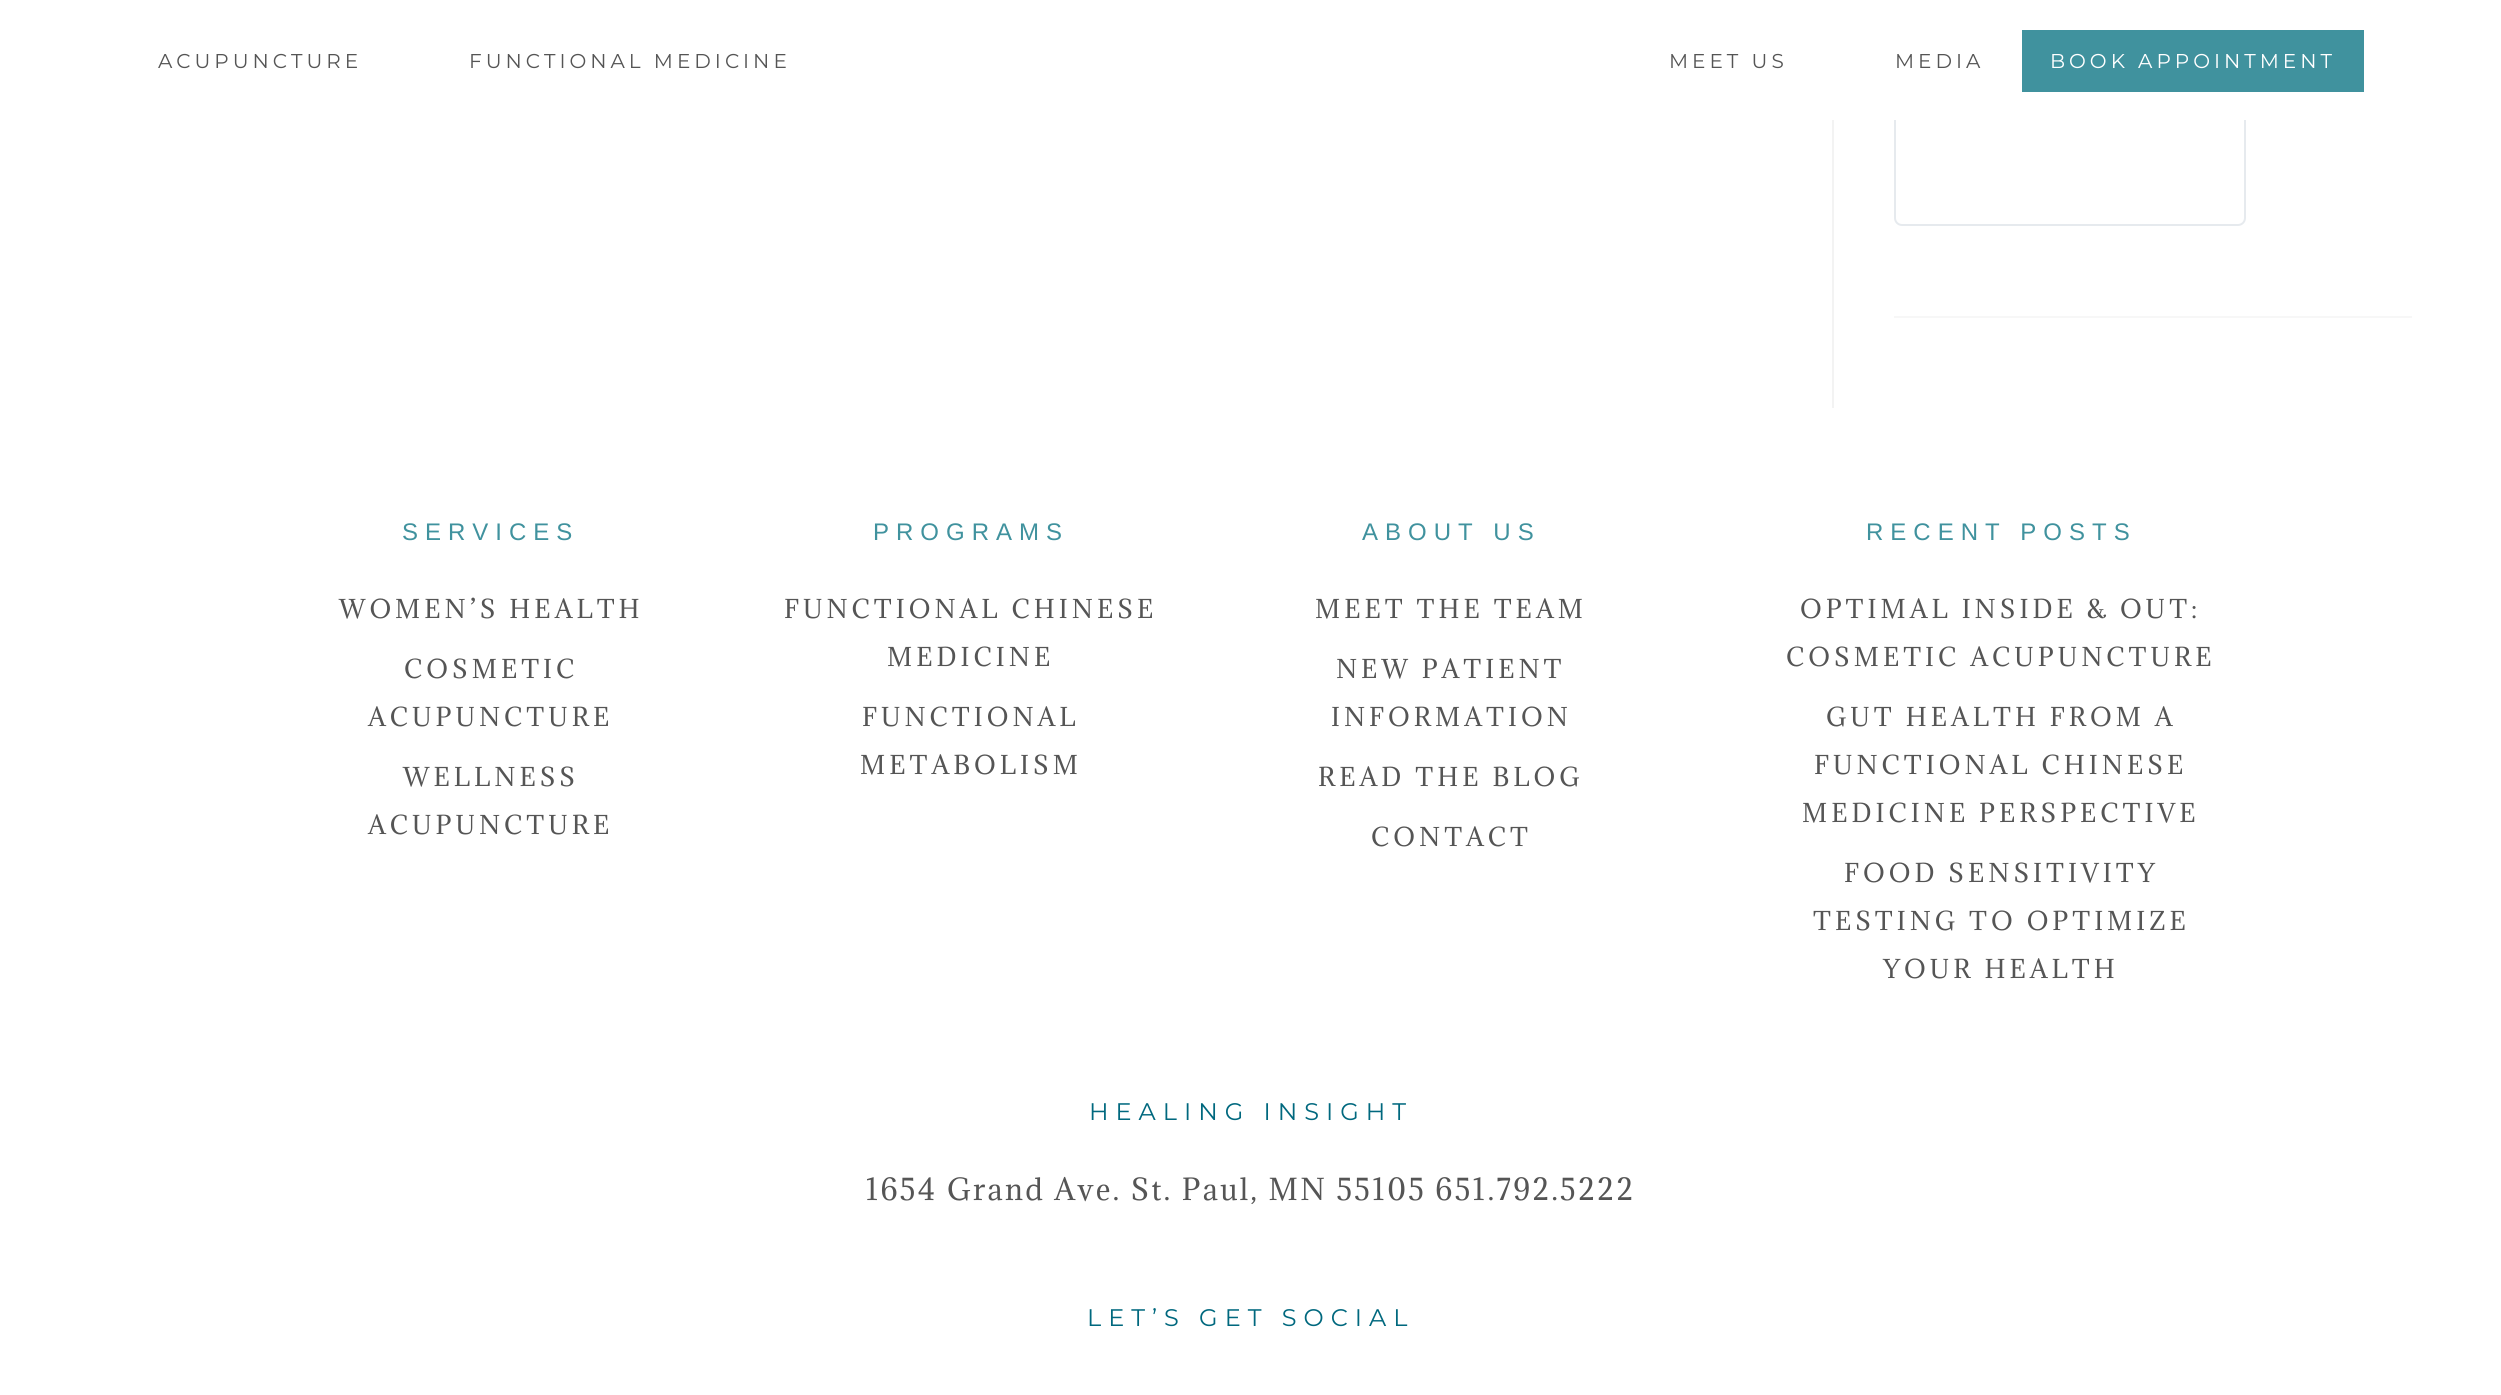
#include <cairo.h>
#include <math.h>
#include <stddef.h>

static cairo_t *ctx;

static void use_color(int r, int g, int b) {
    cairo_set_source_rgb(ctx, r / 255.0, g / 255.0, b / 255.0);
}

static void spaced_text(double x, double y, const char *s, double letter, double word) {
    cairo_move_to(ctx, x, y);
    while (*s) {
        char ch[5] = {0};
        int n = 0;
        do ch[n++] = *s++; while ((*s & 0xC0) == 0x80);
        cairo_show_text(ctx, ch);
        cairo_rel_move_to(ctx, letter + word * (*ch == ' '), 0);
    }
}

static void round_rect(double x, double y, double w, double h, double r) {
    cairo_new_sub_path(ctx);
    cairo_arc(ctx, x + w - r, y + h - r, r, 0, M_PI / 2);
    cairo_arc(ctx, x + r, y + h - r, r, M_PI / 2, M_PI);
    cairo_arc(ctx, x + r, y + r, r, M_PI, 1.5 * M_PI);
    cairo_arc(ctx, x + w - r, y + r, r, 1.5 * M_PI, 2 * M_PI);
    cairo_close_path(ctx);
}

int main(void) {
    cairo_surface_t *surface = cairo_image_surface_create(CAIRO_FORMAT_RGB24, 2501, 1395);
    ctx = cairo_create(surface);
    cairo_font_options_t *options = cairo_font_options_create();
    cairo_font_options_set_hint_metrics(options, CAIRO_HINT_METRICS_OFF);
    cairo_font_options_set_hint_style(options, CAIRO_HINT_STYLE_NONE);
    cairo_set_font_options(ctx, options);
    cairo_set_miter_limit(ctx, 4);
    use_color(255, 255, 255);
    cairo_paint(ctx);
    use_color(243, 243, 243);
    cairo_rectangle(ctx, 1832, 120, 2, 288);
    cairo_fill(ctx);
    use_color(247, 247, 247);
    cairo_rectangle(ctx, 1894, 316, 518, 2);
    cairo_fill(ctx);
    round_rect(1895, -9, 350, 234, 7);
    use_color(230, 234, 238);
    cairo_stroke(ctx);
    use_color(255, 255, 255);
    cairo_rectangle(ctx, 1894, 0, 352, 120);
    cairo_fill(ctx);
    cairo_select_font_face(ctx, "Montserrat", CAIRO_FONT_SLANT_NORMAL, CAIRO_FONT_WEIGHT_NORMAL);
    cairo_set_font_size(ctx, 20);
    use_color(85, 85, 85);
    spaced_text(158, 68, "ACUPUNCTURE", 4, 0);
    spaced_text(469, 68, "FUNCTIONAL MEDICINE", 4, 0);
    spaced_text(1669, 68, "MEET US", 4, 0);
    spaced_text(1895, 68, "MEDIA", 4, 0);
    use_color(64, 146, 158);
    cairo_rectangle(ctx, 2022, 30, 342, 62);
    cairo_fill(ctx);
    use_color(255, 255, 255);
    spaced_text(2050, 68, "BOOK APPOINTMENT", 4, 0);
    cairo_select_font_face(ctx, "Liberation Sans", CAIRO_FONT_SLANT_NORMAL, CAIRO_FONT_WEIGHT_NORMAL);
    cairo_set_font_size(ctx, 24);
    use_color(64, 146, 158);
    spaced_text(402, 540, "SERVICES", 7, 0);
    cairo_select_font_face(ctx, "Adamina", CAIRO_FONT_SLANT_NORMAL, CAIRO_FONT_WEIGHT_NORMAL);
    use_color(85, 85, 85);
    spaced_text(339, 618, "WOMEN’S HEALTH", 4, 0);
    spaced_text(404, 678, "COSMETIC", 4, 0);
    spaced_text(368, 726, "ACUPUNCTURE", 4, 0);
    spaced_text(403, 786, "WELLNESS", 4, 0);
    spaced_text(368, 834, "ACUPUNCTURE", 4, 0);
    cairo_select_font_face(ctx, "Liberation Sans", CAIRO_FONT_SLANT_NORMAL, CAIRO_FONT_WEIGHT_NORMAL);
    use_color(64, 146, 158);
    spaced_text(873, 540, "PROGRAMS", 7, 0);
    cairo_select_font_face(ctx, "Adamina", CAIRO_FONT_SLANT_NORMAL, CAIRO_FONT_WEIGHT_NORMAL);
    use_color(85, 85, 85);
    spaced_text(784, 618, "FUNCTIONAL CHINESE", 4, 0);
    spaced_text(887, 666, "MEDICINE", 4, 0);
    spaced_text(862, 726, "FUNCTIONAL", 4, 0);
    spaced_text(860, 774, "METABOLISM", 4, 0);
    cairo_select_font_face(ctx, "Liberation Sans", CAIRO_FONT_SLANT_NORMAL, CAIRO_FONT_WEIGHT_NORMAL);
    use_color(64, 146, 158);
    spaced_text(1362, 540, "ABOUT US", 7, 0);
    cairo_select_font_face(ctx, "Adamina", CAIRO_FONT_SLANT_NORMAL, CAIRO_FONT_WEIGHT_NORMAL);
    use_color(85, 85, 85);
    spaced_text(1315, 618, "MEET THE TEAM", 4, 0);
    spaced_text(1336, 678, "NEW PATIENT", 4, 0);
    spaced_text(1331, 726, "INFORMATION", 4, 0);
    spaced_text(1318, 786, "READ THE BLOG", 4, 0);
    spaced_text(1371, 846, "CONTACT", 4, 0);
    cairo_select_font_face(ctx, "Liberation Sans", CAIRO_FONT_SLANT_NORMAL, CAIRO_FONT_WEIGHT_NORMAL);
    use_color(64, 146, 158);
    spaced_text(1866, 540, "RECENT POSTS", 7, 0);
    cairo_select_font_face(ctx, "Adamina", CAIRO_FONT_SLANT_NORMAL, CAIRO_FONT_WEIGHT_NORMAL);
    use_color(85, 85, 85);
    spaced_text(1800, 618, "OPTIMAL INSIDE & OUT:", 4, 0);
    spaced_text(1786, 666, "COSMETIC ACUPUNCTURE", 4, 0);
    spaced_text(1826, 726, "GUT HEALTH FROM A", 4, 0);
    spaced_text(1814, 774, "FUNCTIONAL CHINESE", 4, 0);
    spaced_text(1802, 822, "MEDICINE PERSPECTIVE", 4, 0);
    spaced_text(1844, 882, "FOOD SENSITIVITY", 4, 0);
    spaced_text(1813, 930, "TESTING TO OPTIMIZE", 4, 0);
    spaced_text(1883, 978, "YOUR HEALTH", 4, 0);
    cairo_select_font_face(ctx, "Montserrat", CAIRO_FONT_SLANT_NORMAL, CAIRO_FONT_WEIGHT_NORMAL);
    use_color(0, 104, 126);
    spaced_text(1089, 1120, "HEALING INSIGHT", 7, 0);
    cairo_select_font_face(ctx, "Adamina", CAIRO_FONT_SLANT_NORMAL, CAIRO_FONT_WEIGHT_NORMAL);
    cairo_set_font_size(ctx, 28);
    use_color(85, 85, 85);
    spaced_text(866, 1200, "1654 Grand Ave. St. Paul, MN 55105 651.792.5222", 2.4, 0);
    cairo_select_font_face(ctx, "Montserrat", CAIRO_FONT_SLANT_NORMAL, CAIRO_FONT_WEIGHT_NORMAL);
    cairo_set_font_size(ctx, 24);
    use_color(0, 104, 126);
    spaced_text(1087, 1326, "LET’S GET SOCIAL", 7, 0);
    cairo_surface_write_to_png(surface, "result.png");
    cairo_font_options_destroy(options);
    cairo_destroy(ctx);
    cairo_surface_destroy(surface);
    return 0;
}
